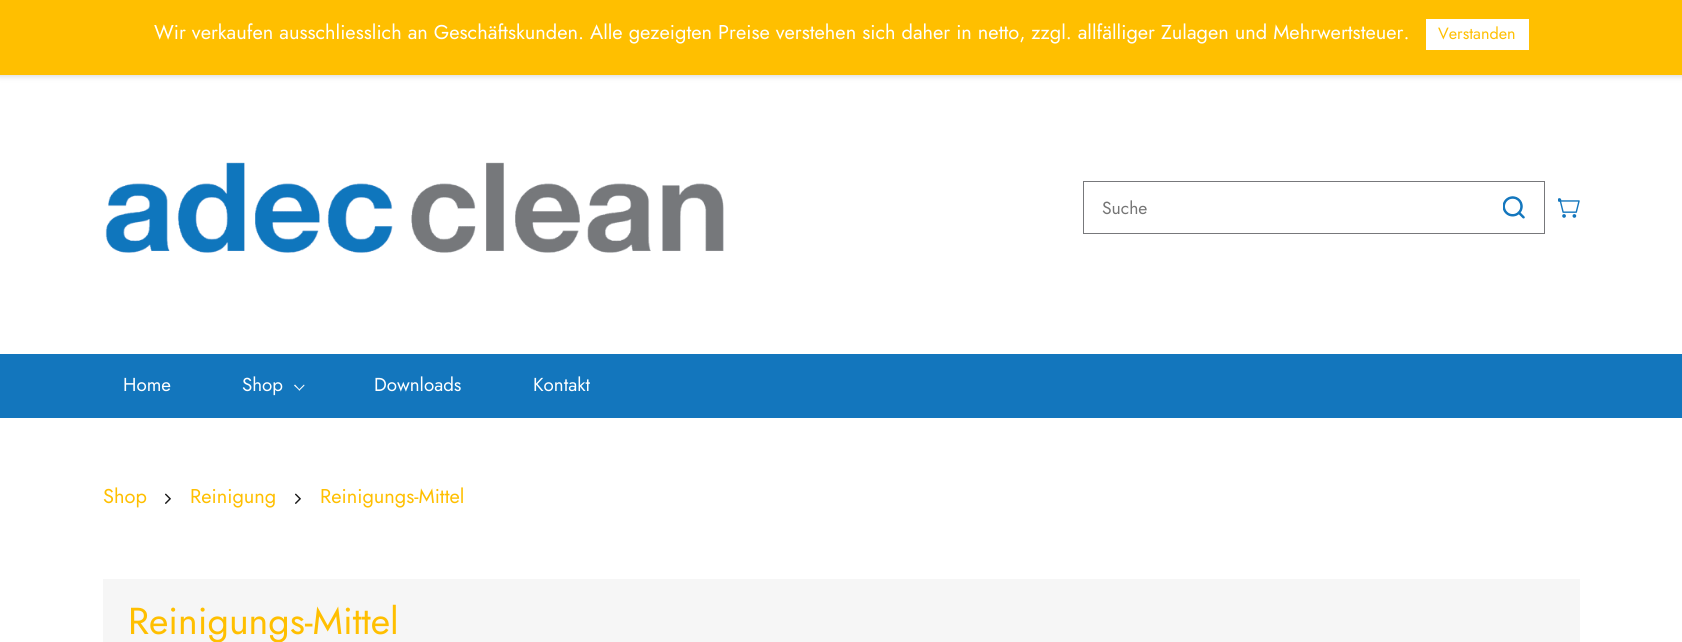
#include <cairo.h>
#include <math.h>
#include <stddef.h>

static cairo_t *ctx;

static void use_color(int r, int g, int b) {
    cairo_set_source_rgb(ctx, r / 255.0, g / 255.0, b / 255.0);
}

static void round_rect(double x, double y, double w, double h, double r) {
    cairo_new_sub_path(ctx);
    cairo_arc(ctx, x + w - r, y + h - r, r, 0, M_PI / 2);
    cairo_arc(ctx, x + r, y + h - r, r, M_PI / 2, M_PI);
    cairo_arc(ctx, x + r, y + r, r, M_PI, 1.5 * M_PI);
    cairo_arc(ctx, x + w - r, y + r, r, 1.5 * M_PI, 2 * M_PI);
    cairo_close_path(ctx);
}

static void shadow(double x, double y, double w, double h, double r, double blur, double alpha) {
    cairo_push_group_with_content(ctx, CAIRO_CONTENT_ALPHA);
    cairo_set_operator(ctx, CAIRO_OPERATOR_SOURCE);
    for (int i = 15; i >= -15 && fmin(w, h) + blur * i / 3 > 0; i -= 2) {
        double e = blur * i / 6;
        cairo_set_source_rgba(ctx, 0, 0, 0, alpha * erfc((i - 1) / 8.5) / 2);
        round_rect(x - e, y - e, w + 2 * e, h + 2 * e, fmax(0, fmin(r + e + blur * .6, fmin(w, h) / 2 + e)));
        cairo_fill(ctx);
    }
    cairo_pattern_t *soft = cairo_pop_group(ctx);
    cairo_mask(ctx, soft);
    cairo_pattern_destroy(soft);
}

static void picture(const char *path, double x, double y, double w, double h) {
    cairo_surface_t *image = cairo_image_surface_create_from_png(path);
    cairo_save(ctx);
    cairo_set_source_surface(ctx, image, x, y);
    cairo_rectangle(ctx, x, y, w, h);
    cairo_fill(ctx);
    cairo_restore(ctx);
    cairo_surface_destroy(image);
}

int main(void) {
    cairo_surface_t *surface = cairo_image_surface_create(CAIRO_FORMAT_RGB24, 1682, 642);
    ctx = cairo_create(surface);
    cairo_font_options_t *options = cairo_font_options_create();
    cairo_font_options_set_hint_metrics(options, CAIRO_HINT_METRICS_OFF);
    cairo_font_options_set_hint_style(options, CAIRO_HINT_STYLE_NONE);
    cairo_set_font_options(ctx, options);
    cairo_set_miter_limit(ctx, 4);
    use_color(255, 255, 255);
    cairo_paint(ctx);
    use_color(214, 214, 214);
    shadow(-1, -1, 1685, 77, 0, 3, 1);
    use_color(255, 191, 0);
    cairo_rectangle(ctx, 0, 0, 1682, 75);
    cairo_fill(ctx);
    cairo_select_font_face(ctx, "Jost", CAIRO_FONT_SLANT_NORMAL, CAIRO_FONT_WEIGHT_NORMAL);
    cairo_set_font_size(ctx, 20);
    use_color(255, 255, 255);
    cairo_move_to(ctx, 154, 39);
    cairo_show_text(ctx, "Wir verkaufen ausschliesslich an Geschäftskunden. Alle gezeigten Preise verstehen sich daher in netto, zzgl. allfälliger Zulagen und Mehrwertsteuer.");
    cairo_rectangle(ctx, 1426, 19, 103, 31);
    cairo_fill(ctx);
    cairo_set_font_size(ctx, 16.25);
    use_color(255, 191, 0);
    cairo_move_to(ctx, 1438, 39);
    cairo_show_text(ctx, "Verstanden");
    picture("img1.png", 105, 162, 619, 91);
    cairo_rectangle(ctx, 1083.5, 181.5, 461, 52);
    use_color(119, 120, 123);
    cairo_set_line_width(ctx, 1);
    cairo_stroke(ctx);
    cairo_set_font_size(ctx, 17.5);
    use_color(117, 117, 117);
    cairo_move_to(ctx, 1102, 214);
    cairo_show_text(ctx, "Suche");
    picture("img2.png", 1503, 196, 22, 23);
    picture("img3.png", 1558, 198, 22, 20);
    use_color(19, 118, 189);
    cairo_rectangle(ctx, 0, 354, 1682, 64);
    cairo_fill(ctx);
    cairo_set_font_size(ctx, 18.75);
    use_color(255, 255, 255);
    cairo_move_to(ctx, 123, 391);
    cairo_show_text(ctx, "Home");
    cairo_move_to(ctx, 242, 391);
    cairo_show_text(ctx, "Shop");
    cairo_new_path(ctx);
    cairo_move_to(ctx, 304.5, 385.5);
    cairo_line_to(ctx, 299.5, 390.5);
    cairo_line_to(ctx, 298.5, 390);
    cairo_line_to(ctx, 304, 384.5);
    cairo_close_path(ctx);
    cairo_fill(ctx);
    cairo_new_path(ctx);
    cairo_move_to(ctx, 300, 390);
    cairo_line_to(ctx, 299.5, 390.5);
    cairo_line_to(ctx, 294, 385.5);
    cairo_line_to(ctx, 295, 384.5);
    cairo_close_path(ctx);
    cairo_fill(ctx);
    cairo_move_to(ctx, 374, 391);
    cairo_show_text(ctx, "Downloads");
    cairo_move_to(ctx, 533, 391);
    cairo_show_text(ctx, "Kontakt");
    cairo_set_font_size(ctx, 20);
    use_color(255, 191, 0);
    cairo_move_to(ctx, 103, 503);
    cairo_show_text(ctx, "Shop");
    picture("img4.png", 165, 493, 6, 11);
    cairo_move_to(ctx, 190, 503);
    cairo_show_text(ctx, "Reinigung");
    picture("img4.png", 295, 493, 6, 11);
    cairo_move_to(ctx, 320, 503);
    cairo_show_text(ctx, "Reinigungs-Mittel");
    use_color(246, 246, 246);
    cairo_rectangle(ctx, 103, 579, 1477, 63);
    cairo_fill(ctx);
    cairo_set_font_size(ctx, 37.5);
    use_color(255, 191, 0);
    cairo_move_to(ctx, 128, 634);
    cairo_show_text(ctx, "Reinigungs-Mittel");
    cairo_surface_write_to_png(surface, "result.png");
    cairo_font_options_destroy(options);
    cairo_destroy(ctx);
    cairo_surface_destroy(surface);
    return 0;
}
